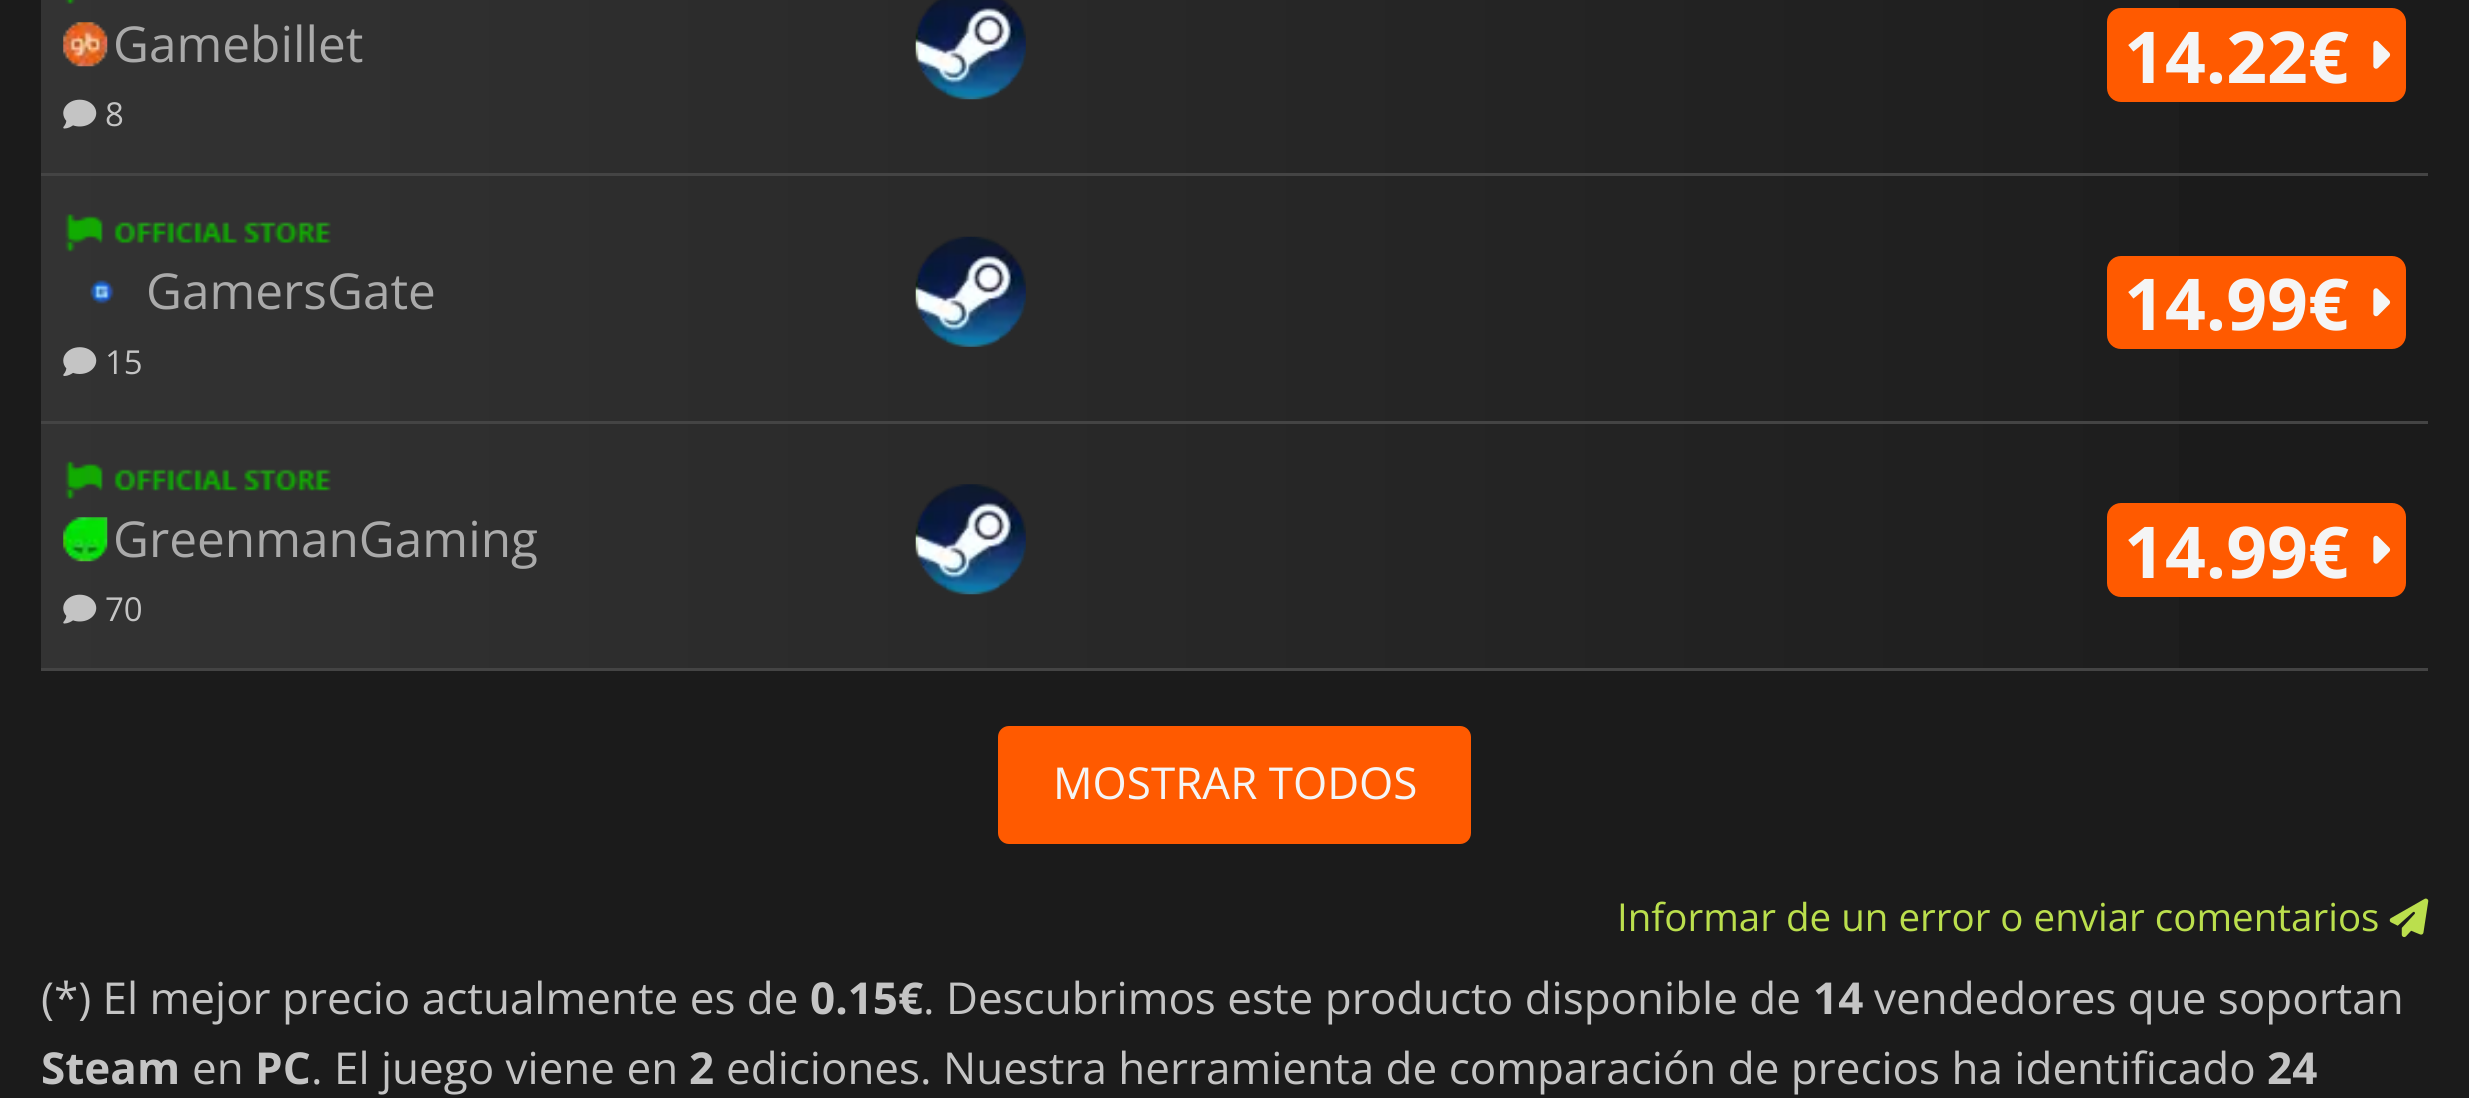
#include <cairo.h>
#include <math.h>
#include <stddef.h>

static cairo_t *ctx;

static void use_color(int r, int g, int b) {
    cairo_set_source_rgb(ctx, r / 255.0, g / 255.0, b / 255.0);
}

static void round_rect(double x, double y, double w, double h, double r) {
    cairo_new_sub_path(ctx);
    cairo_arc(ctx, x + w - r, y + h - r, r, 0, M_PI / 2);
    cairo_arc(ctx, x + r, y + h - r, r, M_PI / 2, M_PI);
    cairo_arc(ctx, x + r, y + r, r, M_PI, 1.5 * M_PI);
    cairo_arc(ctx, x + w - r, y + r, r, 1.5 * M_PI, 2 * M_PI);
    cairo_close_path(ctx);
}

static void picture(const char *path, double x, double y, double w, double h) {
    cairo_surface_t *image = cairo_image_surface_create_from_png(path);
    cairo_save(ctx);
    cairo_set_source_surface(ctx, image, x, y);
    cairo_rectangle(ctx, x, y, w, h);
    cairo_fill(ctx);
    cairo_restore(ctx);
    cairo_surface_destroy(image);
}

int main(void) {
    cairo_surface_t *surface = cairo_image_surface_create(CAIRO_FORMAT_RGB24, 2469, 1098);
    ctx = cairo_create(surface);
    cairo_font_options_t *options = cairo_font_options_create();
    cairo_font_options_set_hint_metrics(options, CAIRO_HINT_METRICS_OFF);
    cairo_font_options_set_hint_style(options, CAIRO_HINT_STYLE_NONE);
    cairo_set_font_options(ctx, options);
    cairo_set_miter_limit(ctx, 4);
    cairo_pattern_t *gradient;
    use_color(27, 27, 27);
    cairo_paint(ctx);
    gradient = cairo_pattern_create_linear(41, 51, 2428, 51);
    cairo_pattern_add_color_stop_rgba(gradient, 0, 0.2, 0.2, 0.2, 1);
    cairo_pattern_add_color_stop_rgba(gradient, 1, 0.106, 0.106, 0.106, 1);
    cairo_set_source(ctx, gradient);
    cairo_pattern_destroy(gradient);
    cairo_rectangle(ctx, 41, 0, 2138, 173);
    cairo_fill(ctx);
    use_color(68, 68, 68);
    cairo_rectangle(ctx, 41, 173, 2387, 3);
    cairo_fill(ctx);
    picture("img1.png", 65, 0, 10, 4);
    picture("img2.png", 63, 22, 45, 45);
    cairo_select_font_face(ctx, "Open Sans", CAIRO_FONT_SLANT_NORMAL, CAIRO_FONT_WEIGHT_NORMAL);
    cairo_set_font_size(ctx, 49.5);
    use_color(170, 170, 170);
    cairo_move_to(ctx, 113, 62);
    cairo_show_text(ctx, "Gamebillet");
    picture("img3.png", 63, 99, 34, 30);
    cairo_set_font_size(ctx, 33);
    use_color(196, 196, 196);
    cairo_move_to(ctx, 105, 126);
    cairo_show_text(ctx, "8");
    picture("img4.png", 915, 0, 111, 100);
    use_color(255, 90, 0);
    round_rect(2107, 8, 299, 94, 14);
    cairo_fill(ctx);
    cairo_select_font_face(ctx, "Open Sans", CAIRO_FONT_SLANT_NORMAL, CAIRO_FONT_WEIGHT_BOLD);
    cairo_set_font_size(ctx, 71.5);
    use_color(245, 245, 245);
    cairo_move_to(ctx, 2124, 83);
    cairo_show_text(ctx, "14.22€");
    picture("img5.png", 2373, 40, 18, 29);
    gradient = cairo_pattern_create_linear(41, 298, 2428, 298);
    cairo_pattern_add_color_stop_rgba(gradient, 0, 0.2, 0.2, 0.2, 1);
    cairo_pattern_add_color_stop_rgba(gradient, 1, 0.106, 0.106, 0.106, 1);
    cairo_set_source(ctx, gradient);
    cairo_pattern_destroy(gradient);
    cairo_rectangle(ctx, 41, 176, 2138, 245);
    cairo_fill(ctx);
    use_color(68, 68, 68);
    cairo_rectangle(ctx, 41, 421, 2387, 3);
    cairo_fill(ctx);
    picture("img6.png", 65, 214, 266, 38);
    picture("img7.png", 90, 280, 24, 24);
    cairo_select_font_face(ctx, "Open Sans", CAIRO_FONT_SLANT_NORMAL, CAIRO_FONT_WEIGHT_NORMAL);
    cairo_set_font_size(ctx, 49.5);
    use_color(170, 170, 170);
    cairo_move_to(ctx, 146, 309);
    cairo_show_text(ctx, "GamersGate");
    picture("img8.png", 63, 347, 34, 29);
    cairo_set_font_size(ctx, 33);
    use_color(196, 196, 196);
    cairo_move_to(ctx, 105, 374);
    cairo_show_text(ctx, "15");
    picture("img9.png", 915, 236, 111, 111);
    use_color(255, 90, 0);
    round_rect(2107, 256, 299, 93, 14);
    cairo_fill(ctx);
    cairo_select_font_face(ctx, "Open Sans", CAIRO_FONT_SLANT_NORMAL, CAIRO_FONT_WEIGHT_BOLD);
    cairo_set_font_size(ctx, 71.5);
    use_color(245, 245, 245);
    cairo_move_to(ctx, 2124, 330);
    cairo_show_text(ctx, "14.99€");
    picture("img10.png", 2373, 288, 18, 29);
    gradient = cairo_pattern_create_linear(41, 546, 2428, 546);
    cairo_pattern_add_color_stop_rgba(gradient, 0, 0.2, 0.2, 0.2, 1);
    cairo_pattern_add_color_stop_rgba(gradient, 1, 0.106, 0.106, 0.106, 1);
    cairo_set_source(ctx, gradient);
    cairo_pattern_destroy(gradient);
    cairo_rectangle(ctx, 41, 424, 2138, 244);
    cairo_fill(ctx);
    use_color(68, 68, 68);
    cairo_rectangle(ctx, 41, 668, 2387, 3);
    cairo_fill(ctx);
    picture("img11.png", 65, 461, 266, 38);
    picture("img12.png", 63, 517, 45, 45);
    cairo_select_font_face(ctx, "Open Sans", CAIRO_FONT_SLANT_NORMAL, CAIRO_FONT_WEIGHT_NORMAL);
    cairo_set_font_size(ctx, 49.5);
    use_color(170, 170, 170);
    cairo_move_to(ctx, 113, 557);
    cairo_show_text(ctx, "GreenmanGaming");
    picture("img3.png", 63, 594, 34, 30);
    cairo_set_font_size(ctx, 33);
    use_color(196, 196, 196);
    cairo_move_to(ctx, 105, 621);
    cairo_show_text(ctx, "70");
    picture("img13.png", 915, 484, 111, 111);
    use_color(255, 90, 0);
    round_rect(2107, 503, 299, 94, 14);
    cairo_fill(ctx);
    cairo_select_font_face(ctx, "Open Sans", CAIRO_FONT_SLANT_NORMAL, CAIRO_FONT_WEIGHT_BOLD);
    cairo_set_font_size(ctx, 71.5);
    use_color(245, 245, 245);
    cairo_move_to(ctx, 2124, 578);
    cairo_show_text(ctx, "14.99€");
    picture("img5.png", 2373, 535, 18, 29);
    use_color(255, 90, 0);
    round_rect(998, 726, 473, 118, 11);
    cairo_fill(ctx);
    cairo_select_font_face(ctx, "Open Sans", CAIRO_FONT_SLANT_NORMAL, CAIRO_FONT_WEIGHT_NORMAL);
    cairo_set_font_size(ctx, 44);
    use_color(245, 245, 245);
    cairo_move_to(ctx, 1053, 799);
    cairo_show_text(ctx, "MOSTRAR TODOS");
    cairo_set_font_size(ctx, 38.5);
    use_color(187, 223, 77);
    cairo_move_to(ctx, 1617, 931);
    cairo_show_text(ctx, "Informar de un error o enviar comentarios");
    picture("img14.png", 2389, 898, 40, 40);
    cairo_set_font_size(ctx, 44);
    use_color(196, 196, 196);
    cairo_move_to(ctx, 41, 1014);
    cairo_show_text(ctx, "(*) El mejor precio actualmente es de");
    cairo_select_font_face(ctx, "Open Sans", CAIRO_FONT_SLANT_NORMAL, CAIRO_FONT_WEIGHT_BOLD);
    cairo_move_to(ctx, 810, 1014);
    cairo_show_text(ctx, "0.15€");
    cairo_select_font_face(ctx, "Open Sans", CAIRO_FONT_SLANT_NORMAL, CAIRO_FONT_WEIGHT_NORMAL);
    cairo_move_to(ctx, 923, 1014);
    cairo_show_text(ctx, ". Descubrimos este producto disponible de");
    cairo_select_font_face(ctx, "Open Sans", CAIRO_FONT_SLANT_NORMAL, CAIRO_FONT_WEIGHT_BOLD);
    cairo_move_to(ctx, 1813, 1014);
    cairo_show_text(ctx, "14");
    cairo_select_font_face(ctx, "Open Sans", CAIRO_FONT_SLANT_NORMAL, CAIRO_FONT_WEIGHT_NORMAL);
    cairo_move_to(ctx, 1874, 1014);
    cairo_show_text(ctx, "vendedores que soportan");
    cairo_select_font_face(ctx, "Open Sans", CAIRO_FONT_SLANT_NORMAL, CAIRO_FONT_WEIGHT_BOLD);
    cairo_move_to(ctx, 41, 1084);
    cairo_show_text(ctx, "Steam");
    cairo_select_font_face(ctx, "Open Sans", CAIRO_FONT_SLANT_NORMAL, CAIRO_FONT_WEIGHT_NORMAL);
    cairo_move_to(ctx, 192, 1084);
    cairo_show_text(ctx, "en");
    cairo_select_font_face(ctx, "Open Sans", CAIRO_FONT_SLANT_NORMAL, CAIRO_FONT_WEIGHT_BOLD);
    cairo_move_to(ctx, 255, 1084);
    cairo_show_text(ctx, "PC");
    cairo_select_font_face(ctx, "Open Sans", CAIRO_FONT_SLANT_NORMAL, CAIRO_FONT_WEIGHT_NORMAL);
    cairo_move_to(ctx, 311, 1084);
    cairo_show_text(ctx, ". El juego viene en");
    cairo_select_font_face(ctx, "Open Sans", CAIRO_FONT_SLANT_NORMAL, CAIRO_FONT_WEIGHT_BOLD);
    cairo_move_to(ctx, 689, 1084);
    cairo_show_text(ctx, "2");
    cairo_select_font_face(ctx, "Open Sans", CAIRO_FONT_SLANT_NORMAL, CAIRO_FONT_WEIGHT_NORMAL);
    cairo_move_to(ctx, 726, 1084);
    cairo_show_text(ctx, "ediciones. Nuestra herramienta de comparación de precios ha identificado");
    cairo_select_font_face(ctx, "Open Sans", CAIRO_FONT_SLANT_NORMAL, CAIRO_FONT_WEIGHT_BOLD);
    cairo_move_to(ctx, 2267, 1084);
    cairo_show_text(ctx, "24");
    cairo_surface_write_to_png(surface, "result.png");
    cairo_font_options_destroy(options);
    cairo_destroy(ctx);
    cairo_surface_destroy(surface);
    return 0;
}
